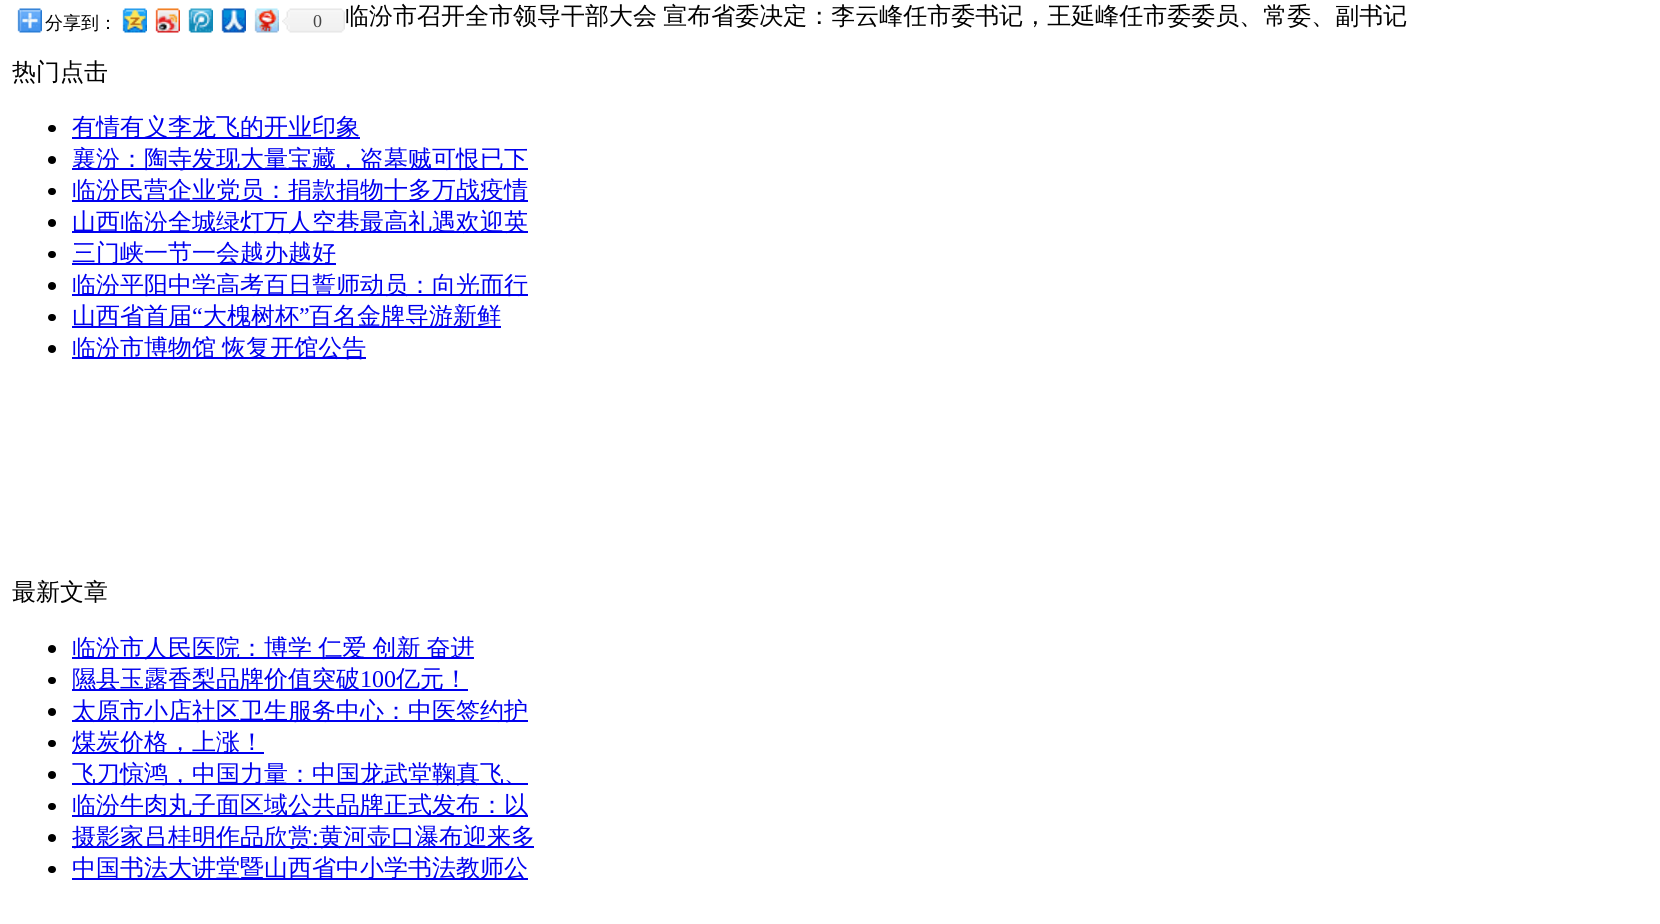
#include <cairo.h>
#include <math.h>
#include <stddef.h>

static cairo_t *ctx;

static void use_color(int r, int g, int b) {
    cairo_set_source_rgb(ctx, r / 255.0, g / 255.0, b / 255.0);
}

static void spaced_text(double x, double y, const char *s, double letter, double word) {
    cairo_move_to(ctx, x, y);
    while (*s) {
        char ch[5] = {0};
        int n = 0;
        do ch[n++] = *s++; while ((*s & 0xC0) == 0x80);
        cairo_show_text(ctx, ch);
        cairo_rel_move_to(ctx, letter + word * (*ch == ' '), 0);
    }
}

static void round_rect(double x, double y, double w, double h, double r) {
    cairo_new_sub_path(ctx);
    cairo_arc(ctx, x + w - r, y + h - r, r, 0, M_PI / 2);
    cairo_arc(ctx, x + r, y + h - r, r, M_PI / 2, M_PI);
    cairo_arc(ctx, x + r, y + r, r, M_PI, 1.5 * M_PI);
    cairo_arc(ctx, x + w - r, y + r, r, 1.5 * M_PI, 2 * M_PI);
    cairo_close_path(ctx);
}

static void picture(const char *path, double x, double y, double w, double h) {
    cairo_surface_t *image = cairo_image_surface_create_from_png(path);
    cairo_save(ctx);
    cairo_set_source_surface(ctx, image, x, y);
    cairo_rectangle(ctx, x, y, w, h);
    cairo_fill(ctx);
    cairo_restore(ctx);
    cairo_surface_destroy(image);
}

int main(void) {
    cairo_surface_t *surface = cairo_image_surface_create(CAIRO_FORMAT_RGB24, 1660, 924);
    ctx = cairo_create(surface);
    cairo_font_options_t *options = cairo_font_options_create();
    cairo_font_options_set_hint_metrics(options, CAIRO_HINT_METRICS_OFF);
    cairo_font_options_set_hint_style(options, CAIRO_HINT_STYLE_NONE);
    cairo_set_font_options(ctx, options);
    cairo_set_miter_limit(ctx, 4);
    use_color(255, 255, 255);
    cairo_paint(ctx);
    picture("img1.png", 17, 8, 25, 25);
    cairo_select_font_face(ctx, "WenQuanYi Zen Hei Medium", CAIRO_FONT_SLANT_NORMAL, CAIRO_FONT_WEIGHT_NORMAL);
    cairo_set_font_size(ctx, 18);
    use_color(0, 0, 0);
    cairo_move_to(ctx, 45, 29);
    cairo_show_text(ctx, "分享到：");
    picture("img2.png", 122, 8, 25, 25);
    picture("img3.png", 155, 8, 25, 25);
    picture("img4.png", 188, 8, 25, 25);
    picture("img5.png", 221, 8, 25, 25);
    picture("img6.png", 254, 8, 25, 25);
    picture("img7.png", 282, 8, 63, 25);
    cairo_select_font_face(ctx, "Liberation Serif", CAIRO_FONT_SLANT_NORMAL, CAIRO_FONT_WEIGHT_NORMAL);
    use_color(69, 69, 69);
    cairo_move_to(ctx, 313, 27);
    cairo_show_text(ctx, "0");
    cairo_select_font_face(ctx, "WenQuanYi Zen Hei Medium", CAIRO_FONT_SLANT_NORMAL, CAIRO_FONT_WEIGHT_NORMAL);
    cairo_set_font_size(ctx, 24);
    use_color(0, 0, 0);
    spaced_text(345, 24, "临汾市召开全市领导干部大会 宣布省委决定：李云峰任市委书记，王延峰任市委委员、常委、副书记", 0, -1);
    cairo_move_to(ctx, 12, 80);
    cairo_show_text(ctx, "热门点击");
    round_rect(48, 125, 8, 7, 3.5);
    cairo_fill(ctx);
    use_color(0, 0, 238);
    cairo_rectangle(ctx, 72, 137, 288, 2);
    cairo_fill(ctx);
    cairo_move_to(ctx, 72, 135);
    cairo_show_text(ctx, "有情有义李龙飞的开业印象");
    use_color(0, 0, 0);
    cairo_new_path(ctx);
    cairo_arc(ctx, 52, 160, 4, 0, 2 * M_PI);
    cairo_fill(ctx);
    use_color(0, 0, 238);
    cairo_rectangle(ctx, 72, 168, 456, 2);
    cairo_fill(ctx);
    cairo_move_to(ctx, 72, 167);
    cairo_show_text(ctx, "襄汾：陶寺发现大量宝藏，盗墓贼可恨已下");
    use_color(0, 0, 0);
    round_rect(48, 188, 8, 7, 3.5);
    cairo_fill(ctx);
    use_color(0, 0, 238);
    cairo_rectangle(ctx, 72, 200, 456, 2);
    cairo_fill(ctx);
    cairo_move_to(ctx, 72, 198);
    cairo_show_text(ctx, "临汾民营企业党员：捐款捐物十多万战疫情");
    use_color(0, 0, 0);
    cairo_new_path(ctx);
    cairo_arc(ctx, 52, 223, 4, 0, 2 * M_PI);
    cairo_fill(ctx);
    use_color(0, 0, 238);
    cairo_rectangle(ctx, 72, 231, 456, 2);
    cairo_fill(ctx);
    cairo_move_to(ctx, 72, 230);
    cairo_show_text(ctx, "山西临汾全城绿灯万人空巷最高礼遇欢迎英");
    use_color(0, 0, 0);
    round_rect(48, 251, 8, 7, 3.5);
    cairo_fill(ctx);
    use_color(0, 0, 238);
    cairo_rectangle(ctx, 72, 263, 264, 2);
    cairo_fill(ctx);
    cairo_move_to(ctx, 72, 261);
    cairo_show_text(ctx, "三门峡一节一会越办越好");
    use_color(0, 0, 0);
    cairo_new_path(ctx);
    cairo_arc(ctx, 52, 286, 4, 0, 2 * M_PI);
    cairo_fill(ctx);
    use_color(0, 0, 238);
    cairo_rectangle(ctx, 72, 294, 456, 2);
    cairo_fill(ctx);
    cairo_move_to(ctx, 72, 293);
    cairo_show_text(ctx, "临汾平阳中学高考百日誓师动员：向光而行");
    cairo_rectangle(ctx, 72, 326, 429, 2);
    cairo_fill(ctx);
    cairo_move_to(ctx, 72, 324);
    cairo_show_text(ctx, "山西省首届");
    cairo_select_font_face(ctx, "Liberation Serif", CAIRO_FONT_SLANT_NORMAL, CAIRO_FONT_WEIGHT_NORMAL);
    cairo_move_to(ctx, 192, 324);
    cairo_show_text(ctx, "“");
    cairo_select_font_face(ctx, "WenQuanYi Zen Hei Medium", CAIRO_FONT_SLANT_NORMAL, CAIRO_FONT_WEIGHT_NORMAL);
    cairo_move_to(ctx, 203, 324);
    cairo_show_text(ctx, "大槐树杯");
    cairo_select_font_face(ctx, "Liberation Serif", CAIRO_FONT_SLANT_NORMAL, CAIRO_FONT_WEIGHT_NORMAL);
    cairo_move_to(ctx, 299, 324);
    cairo_show_text(ctx, "”");
    cairo_select_font_face(ctx, "WenQuanYi Zen Hei Medium", CAIRO_FONT_SLANT_NORMAL, CAIRO_FONT_WEIGHT_NORMAL);
    cairo_move_to(ctx, 309, 324);
    cairo_show_text(ctx, "百名金牌导游新鲜");
    use_color(0, 0, 0);
    round_rect(48, 314, 8, 7, 3.5);
    cairo_fill(ctx);
    cairo_arc(ctx, 52, 349, 4, 0, 2 * M_PI);
    cairo_fill(ctx);
    use_color(0, 0, 238);
    cairo_rectangle(ctx, 72, 357, 294, 2);
    cairo_fill(ctx);
    spaced_text(72, 356, "临汾市博物馆 恢复开馆公告", 0, -1);
    use_color(0, 0, 0);
    cairo_move_to(ctx, 12, 600);
    cairo_show_text(ctx, "最新文章");
    cairo_new_path(ctx);
    cairo_arc(ctx, 52, 649, 4, 0, 2 * M_PI);
    cairo_fill(ctx);
    use_color(0, 0, 238);
    cairo_rectangle(ctx, 72, 657, 402, 2);
    cairo_fill(ctx);
    spaced_text(72, 656, "临汾市人民医院：博学 仁爱 创新 奋进", 0, -1);
    use_color(0, 0, 0);
    round_rect(48, 677, 8, 7, 3.5);
    cairo_fill(ctx);
    use_color(0, 0, 238);
    cairo_rectangle(ctx, 72, 689, 396, 2);
    cairo_fill(ctx);
    cairo_move_to(ctx, 72, 687);
    cairo_show_text(ctx, "隰县玉露香梨品牌价值突破");
    cairo_select_font_face(ctx, "Liberation Serif", CAIRO_FONT_SLANT_NORMAL, CAIRO_FONT_WEIGHT_NORMAL);
    cairo_move_to(ctx, 360, 687);
    cairo_show_text(ctx, "100");
    cairo_select_font_face(ctx, "WenQuanYi Zen Hei Medium", CAIRO_FONT_SLANT_NORMAL, CAIRO_FONT_WEIGHT_NORMAL);
    cairo_move_to(ctx, 396, 687);
    cairo_show_text(ctx, "亿元！");
    use_color(0, 0, 0);
    cairo_new_path(ctx);
    cairo_arc(ctx, 52, 712, 4, 0, 2 * M_PI);
    cairo_fill(ctx);
    use_color(0, 0, 238);
    cairo_rectangle(ctx, 72, 720, 456, 2);
    cairo_fill(ctx);
    cairo_move_to(ctx, 72, 719);
    cairo_show_text(ctx, "太原市小店社区卫生服务中心：中医签约护");
    use_color(0, 0, 0);
    round_rect(48, 740, 8, 7, 3.5);
    cairo_fill(ctx);
    use_color(0, 0, 238);
    cairo_rectangle(ctx, 72, 752, 192, 2);
    cairo_fill(ctx);
    cairo_move_to(ctx, 72, 750);
    cairo_show_text(ctx, "煤炭价格，上涨！");
    use_color(0, 0, 0);
    cairo_new_path(ctx);
    cairo_arc(ctx, 52, 775, 4, 0, 2 * M_PI);
    cairo_fill(ctx);
    use_color(0, 0, 238);
    cairo_rectangle(ctx, 72, 783, 456, 2);
    cairo_fill(ctx);
    cairo_move_to(ctx, 72, 782);
    cairo_show_text(ctx, "飞刀惊鸿，中国力量：中国龙武堂鞠真飞、");
    use_color(0, 0, 0);
    round_rect(48, 803, 8, 7, 3.5);
    cairo_fill(ctx);
    use_color(0, 0, 238);
    cairo_rectangle(ctx, 72, 815, 456, 2);
    cairo_fill(ctx);
    cairo_move_to(ctx, 72, 813);
    cairo_show_text(ctx, "临汾牛肉丸子面区域公共品牌正式发布：以");
    use_color(0, 0, 0);
    cairo_new_path(ctx);
    cairo_arc(ctx, 52, 838, 4, 0, 2 * M_PI);
    cairo_fill(ctx);
    use_color(0, 0, 238);
    cairo_rectangle(ctx, 72, 846, 462, 2);
    cairo_fill(ctx);
    cairo_move_to(ctx, 72, 845);
    cairo_show_text(ctx, "摄影家吕桂明作品欣赏");
    cairo_select_font_face(ctx, "Liberation Serif", CAIRO_FONT_SLANT_NORMAL, CAIRO_FONT_WEIGHT_NORMAL);
    cairo_move_to(ctx, 312, 845);
    cairo_show_text(ctx, ":");
    cairo_select_font_face(ctx, "WenQuanYi Zen Hei Medium", CAIRO_FONT_SLANT_NORMAL, CAIRO_FONT_WEIGHT_NORMAL);
    cairo_move_to(ctx, 319, 845);
    cairo_show_text(ctx, "黄河壶口瀑布迎来多");
    use_color(0, 0, 0);
    round_rect(48, 866, 8, 7, 3.5);
    cairo_fill(ctx);
    use_color(0, 0, 238);
    cairo_rectangle(ctx, 72, 878, 456, 2);
    cairo_fill(ctx);
    cairo_move_to(ctx, 72, 876);
    cairo_show_text(ctx, "中国书法大讲堂暨山西省中小学书法教师公");
    cairo_surface_write_to_png(surface, "result.png");
    cairo_font_options_destroy(options);
    cairo_destroy(ctx);
    cairo_surface_destroy(surface);
    return 0;
}
